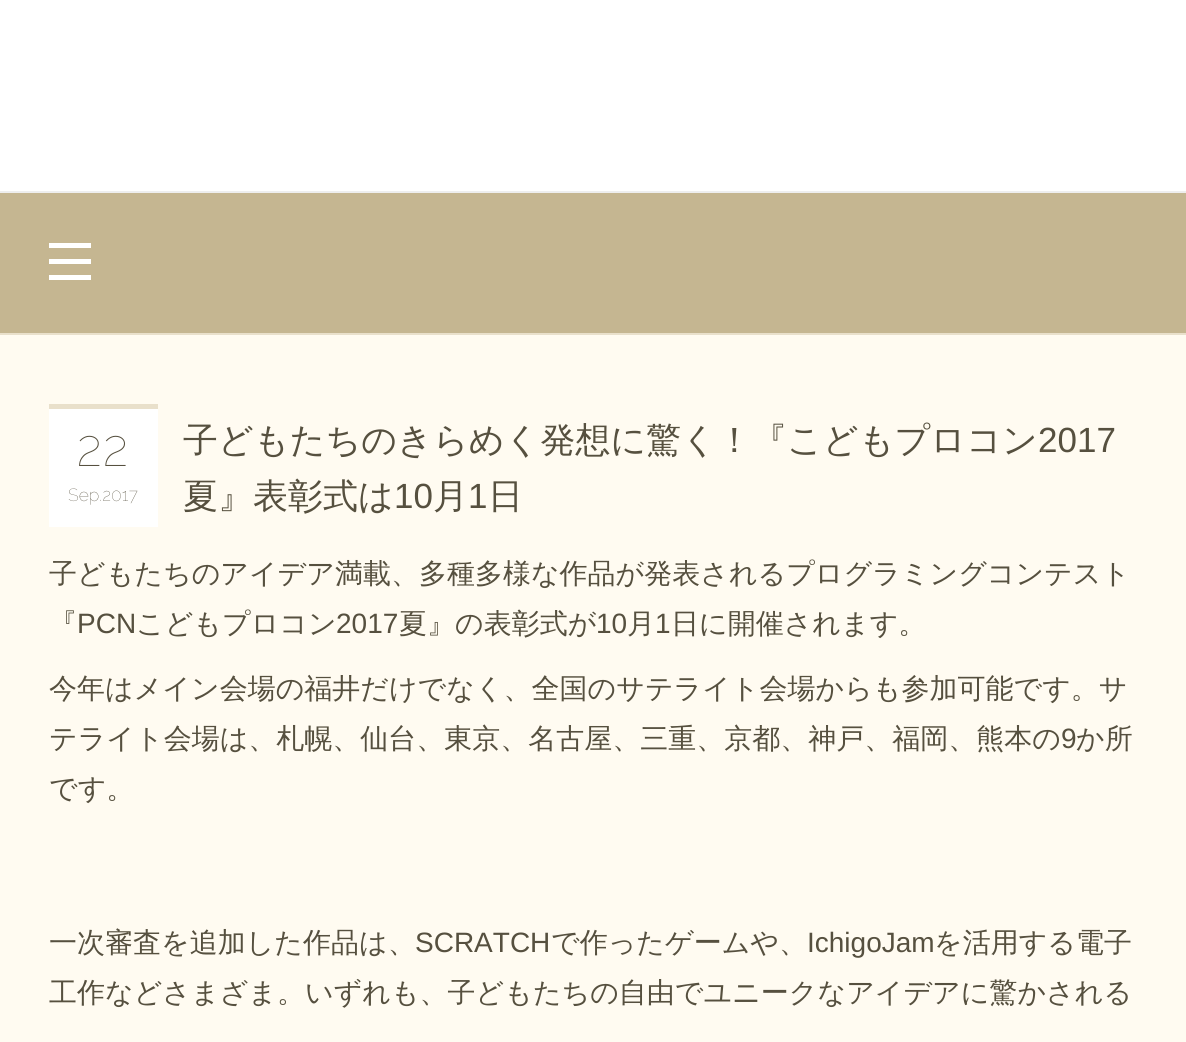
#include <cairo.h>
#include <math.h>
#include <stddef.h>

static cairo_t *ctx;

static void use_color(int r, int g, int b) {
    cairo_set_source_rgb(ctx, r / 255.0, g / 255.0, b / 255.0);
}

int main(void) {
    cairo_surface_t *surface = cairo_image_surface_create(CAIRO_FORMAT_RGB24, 1186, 1042);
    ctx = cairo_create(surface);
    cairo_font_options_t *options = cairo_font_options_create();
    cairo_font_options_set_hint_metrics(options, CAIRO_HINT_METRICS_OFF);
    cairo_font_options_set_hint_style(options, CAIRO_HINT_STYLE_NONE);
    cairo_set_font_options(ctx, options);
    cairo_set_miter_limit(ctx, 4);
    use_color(255, 251, 241);
    cairo_paint(ctx);
    use_color(255, 255, 255);
    cairo_rectangle(ctx, 0, 0, 1186, 191);
    cairo_fill(ctx);
    use_color(238, 238, 238);
    cairo_rectangle(ctx, 0, 191, 1186, 2);
    cairo_fill(ctx);
    use_color(197, 182, 145);
    cairo_rectangle(ctx, 0, 193, 1186, 140);
    cairo_fill(ctx);
    use_color(233, 224, 203);
    cairo_rectangle(ctx, 0, 333, 1186, 2);
    cairo_fill(ctx);
    use_color(255, 255, 255);
    cairo_rectangle(ctx, 49, 243, 42, 5);
    cairo_fill(ctx);
    cairo_rectangle(ctx, 49, 259, 42, 5);
    cairo_fill(ctx);
    cairo_rectangle(ctx, 49, 275, 42, 5);
    cairo_fill(ctx);
    cairo_rectangle(ctx, 49, 409, 109, 118);
    cairo_fill(ctx);
    use_color(233, 224, 203);
    cairo_rectangle(ctx, 49, 404, 109, 5);
    cairo_fill(ctx);
    cairo_select_font_face(ctx, "Raleway Thin", CAIRO_FONT_SLANT_NORMAL, CAIRO_FONT_WEIGHT_NORMAL);
    cairo_set_font_size(ctx, 52);
    use_color(86, 80, 63);
    cairo_move_to(ctx, 76, 466);
    cairo_show_text(ctx, "22");
    cairo_set_font_size(ctx, 17.5);
    cairo_move_to(ctx, 68, 501);
    cairo_show_text(ctx, "Sep.2017");
    cairo_select_font_face(ctx, "WenQuanYi Zen Hei Medium", CAIRO_FONT_SLANT_NORMAL, CAIRO_FONT_WEIGHT_NORMAL);
    cairo_set_font_size(ctx, 35);
    cairo_move_to(ctx, 183, 452);
    cairo_show_text(ctx, "子どもたちのきらめく発想に驚く！『こどもプロコン");
    cairo_select_font_face(ctx, "Liberation Sans", CAIRO_FONT_SLANT_NORMAL, CAIRO_FONT_WEIGHT_NORMAL);
    cairo_move_to(ctx, 1038, 452);
    cairo_show_text(ctx, "2017");
    cairo_select_font_face(ctx, "WenQuanYi Zen Hei Medium", CAIRO_FONT_SLANT_NORMAL, CAIRO_FONT_WEIGHT_NORMAL);
    cairo_move_to(ctx, 183, 508);
    cairo_show_text(ctx, "夏』表彰式は");
    cairo_select_font_face(ctx, "Liberation Sans", CAIRO_FONT_SLANT_NORMAL, CAIRO_FONT_WEIGHT_NORMAL);
    cairo_move_to(ctx, 394, 508);
    cairo_show_text(ctx, "10");
    cairo_select_font_face(ctx, "WenQuanYi Zen Hei Medium", CAIRO_FONT_SLANT_NORMAL, CAIRO_FONT_WEIGHT_NORMAL);
    cairo_move_to(ctx, 433, 508);
    cairo_show_text(ctx, "月");
    cairo_select_font_face(ctx, "Liberation Sans", CAIRO_FONT_SLANT_NORMAL, CAIRO_FONT_WEIGHT_NORMAL);
    cairo_move_to(ctx, 468, 508);
    cairo_show_text(ctx, "1");
    cairo_select_font_face(ctx, "WenQuanYi Zen Hei Medium", CAIRO_FONT_SLANT_NORMAL, CAIRO_FONT_WEIGHT_NORMAL);
    cairo_move_to(ctx, 488, 508);
    cairo_show_text(ctx, "日");
    cairo_set_font_size(ctx, 28);
    cairo_move_to(ctx, 49, 583);
    cairo_show_text(ctx, "子どもたちのアイデア満載、多種多様な作品が発表されるプログラミングコンテスト");
    cairo_move_to(ctx, 49, 633);
    cairo_show_text(ctx, "『");
    cairo_select_font_face(ctx, "Liberation Sans", CAIRO_FONT_SLANT_NORMAL, CAIRO_FONT_WEIGHT_NORMAL);
    cairo_move_to(ctx, 77, 633);
    cairo_show_text(ctx, "PCN");
    cairo_select_font_face(ctx, "WenQuanYi Zen Hei Medium", CAIRO_FONT_SLANT_NORMAL, CAIRO_FONT_WEIGHT_NORMAL);
    cairo_move_to(ctx, 136, 633);
    cairo_show_text(ctx, "こどもプロコン");
    cairo_select_font_face(ctx, "Liberation Sans", CAIRO_FONT_SLANT_NORMAL, CAIRO_FONT_WEIGHT_NORMAL);
    cairo_move_to(ctx, 336, 633);
    cairo_show_text(ctx, "2017");
    cairo_select_font_face(ctx, "WenQuanYi Zen Hei Medium", CAIRO_FONT_SLANT_NORMAL, CAIRO_FONT_WEIGHT_NORMAL);
    cairo_move_to(ctx, 399, 633);
    cairo_show_text(ctx, "夏』の表彰式が");
    cairo_select_font_face(ctx, "Liberation Sans", CAIRO_FONT_SLANT_NORMAL, CAIRO_FONT_WEIGHT_NORMAL);
    cairo_move_to(ctx, 596, 633);
    cairo_show_text(ctx, "10");
    cairo_select_font_face(ctx, "WenQuanYi Zen Hei Medium", CAIRO_FONT_SLANT_NORMAL, CAIRO_FONT_WEIGHT_NORMAL);
    cairo_move_to(ctx, 627, 633);
    cairo_show_text(ctx, "月");
    cairo_select_font_face(ctx, "Liberation Sans", CAIRO_FONT_SLANT_NORMAL, CAIRO_FONT_WEIGHT_NORMAL);
    cairo_move_to(ctx, 655, 633);
    cairo_show_text(ctx, "1");
    cairo_select_font_face(ctx, "WenQuanYi Zen Hei Medium", CAIRO_FONT_SLANT_NORMAL, CAIRO_FONT_WEIGHT_NORMAL);
    cairo_move_to(ctx, 671, 633);
    cairo_show_text(ctx, "日に開催されます。");
    cairo_move_to(ctx, 49, 698);
    cairo_show_text(ctx, "今年はメイン会場の福井だけでなく、全国のサテライト会場からも参加可能です。サ");
    cairo_move_to(ctx, 49, 748);
    cairo_show_text(ctx, "テライト会場は、札幌、仙台、東京、名古屋、三重、京都、神戸、福岡、熊本の");
    cairo_select_font_face(ctx, "Liberation Sans", CAIRO_FONT_SLANT_NORMAL, CAIRO_FONT_WEIGHT_NORMAL);
    cairo_move_to(ctx, 1061, 748);
    cairo_show_text(ctx, "9");
    cairo_select_font_face(ctx, "WenQuanYi Zen Hei Medium", CAIRO_FONT_SLANT_NORMAL, CAIRO_FONT_WEIGHT_NORMAL);
    cairo_move_to(ctx, 1076, 748);
    cairo_show_text(ctx, "か所");
    cairo_move_to(ctx, 49, 798);
    cairo_show_text(ctx, "です。");
    cairo_move_to(ctx, 49, 952);
    cairo_show_text(ctx, "一次審査を追加した作品は、");
    cairo_select_font_face(ctx, "Liberation Sans", CAIRO_FONT_SLANT_NORMAL, CAIRO_FONT_WEIGHT_NORMAL);
    cairo_move_to(ctx, 415, 952);
    cairo_show_text(ctx, "SCRATCH");
    cairo_select_font_face(ctx, "WenQuanYi Zen Hei Medium", CAIRO_FONT_SLANT_NORMAL, CAIRO_FONT_WEIGHT_NORMAL);
    cairo_move_to(ctx, 551, 952);
    cairo_show_text(ctx, "で作ったゲームや、");
    cairo_select_font_face(ctx, "Liberation Sans", CAIRO_FONT_SLANT_NORMAL, CAIRO_FONT_WEIGHT_NORMAL);
    cairo_move_to(ctx, 807, 952);
    cairo_show_text(ctx, "IchigoJam");
    cairo_select_font_face(ctx, "WenQuanYi Zen Hei Medium", CAIRO_FONT_SLANT_NORMAL, CAIRO_FONT_WEIGHT_NORMAL);
    cairo_move_to(ctx, 934, 952);
    cairo_show_text(ctx, "を活用する電子");
    cairo_move_to(ctx, 49, 1002);
    cairo_show_text(ctx, "工作などさまざま。いずれも、子どもたちの自由でユニークなアイデアに驚かされる");
    cairo_surface_write_to_png(surface, "result.png");
    cairo_font_options_destroy(options);
    cairo_destroy(ctx);
    cairo_surface_destroy(surface);
    return 0;
}
